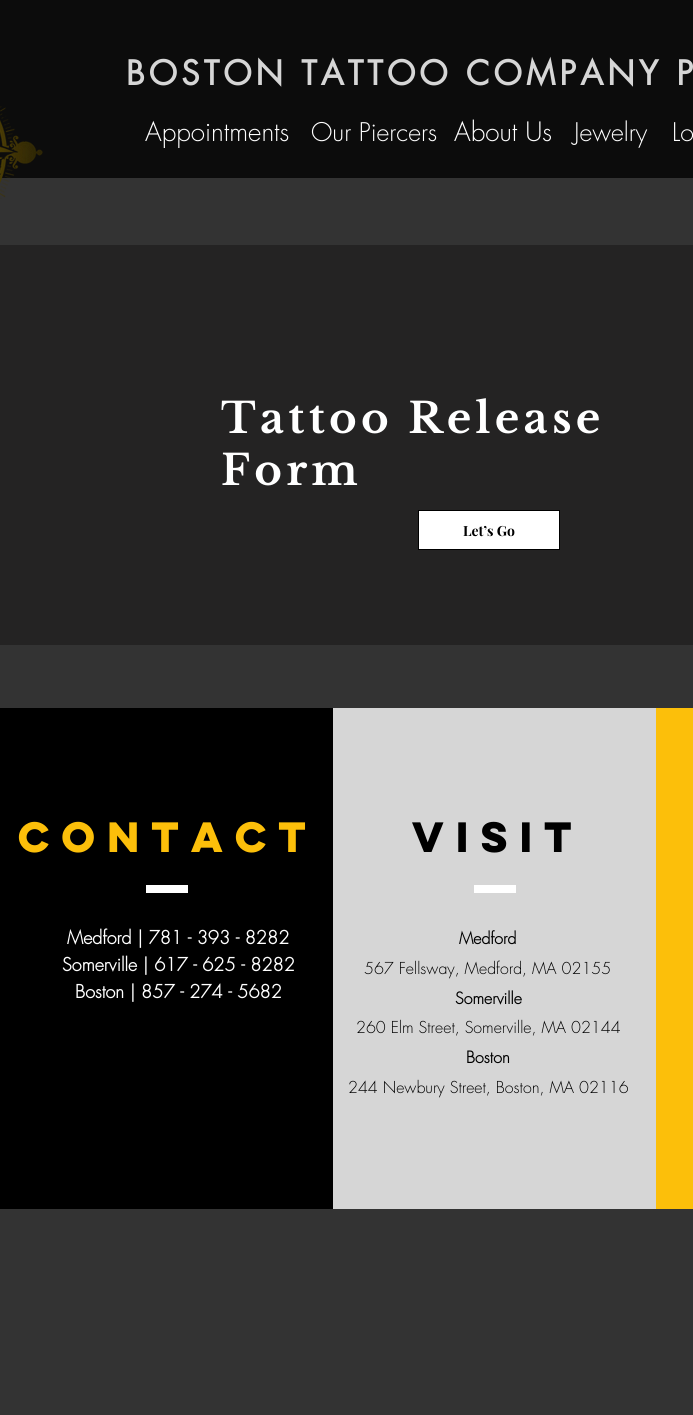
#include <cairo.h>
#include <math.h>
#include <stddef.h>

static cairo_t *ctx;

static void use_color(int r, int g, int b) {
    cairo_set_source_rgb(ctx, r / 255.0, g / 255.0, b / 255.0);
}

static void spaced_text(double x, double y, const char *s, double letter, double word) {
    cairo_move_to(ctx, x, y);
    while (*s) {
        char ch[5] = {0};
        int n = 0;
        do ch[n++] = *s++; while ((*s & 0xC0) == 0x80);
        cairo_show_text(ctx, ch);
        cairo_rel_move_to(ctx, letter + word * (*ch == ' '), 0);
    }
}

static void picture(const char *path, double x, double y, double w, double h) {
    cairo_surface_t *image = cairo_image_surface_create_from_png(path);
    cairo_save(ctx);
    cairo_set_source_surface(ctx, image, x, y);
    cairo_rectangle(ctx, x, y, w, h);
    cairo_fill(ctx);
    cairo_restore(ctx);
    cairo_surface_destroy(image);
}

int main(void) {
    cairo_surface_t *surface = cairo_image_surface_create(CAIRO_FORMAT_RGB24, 693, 1415);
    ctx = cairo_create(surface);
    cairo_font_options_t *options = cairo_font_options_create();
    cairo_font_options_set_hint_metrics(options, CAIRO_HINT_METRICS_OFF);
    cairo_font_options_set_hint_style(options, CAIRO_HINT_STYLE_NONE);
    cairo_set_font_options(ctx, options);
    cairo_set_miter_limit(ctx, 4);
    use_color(51, 51, 51);
    cairo_paint(ctx);
    use_color(12, 12, 12);
    cairo_rectangle(ctx, 0, 0, 693, 178);
    cairo_fill(ctx);
    cairo_select_font_face(ctx, "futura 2", CAIRO_FONT_SLANT_NORMAL, CAIRO_FONT_WEIGHT_BOLD);
    cairo_set_font_size(ctx, 33);
    use_color(214, 214, 214);
    spaced_text(126, 85, "BOSTON TATTOO COMPANY P", 4, 0);
    picture("img1.png", 0, 106, 43, 93);
    cairo_select_font_face(ctx, "futura Light", CAIRO_FONT_SLANT_NORMAL, CAIRO_FONT_WEIGHT_NORMAL);
    cairo_set_font_size(ctx, 26);
    use_color(255, 255, 255);
    cairo_move_to(ctx, 145, 141);
    cairo_show_text(ctx, "Appointments");
    cairo_set_font_size(ctx, 25);
    cairo_move_to(ctx, 311, 141);
    cairo_show_text(ctx, "Our Piercers");
    cairo_set_font_size(ctx, 26);
    cairo_move_to(ctx, 454, 141);
    cairo_show_text(ctx, "About Us");
    cairo_set_font_size(ctx, 25);
    cairo_move_to(ctx, 574, 141);
    cairo_show_text(ctx, "Jewelry");
    cairo_move_to(ctx, 672, 141);
    cairo_show_text(ctx, "Lo");
    use_color(36, 35, 35);
    cairo_rectangle(ctx, 0, 245, 693, 400);
    cairo_fill(ctx);
    cairo_select_font_face(ctx, "Libre Baskerville", CAIRO_FONT_SLANT_NORMAL, CAIRO_FONT_WEIGHT_BOLD);
    cairo_set_font_size(ctx, 42);
    use_color(255, 255, 255);
    spaced_text(221, 433, "Tattoo Release", 4.25, 0);
    spaced_text(221, 485, "Form", 4.25, 0);
    cairo_rectangle(ctx, 418.5, 510.5, 141, 39);
    cairo_fill_preserve(ctx);
    use_color(0, 0, 0);
    cairo_set_line_width(ctx, 1);
    cairo_stroke(ctx);
    cairo_select_font_face(ctx, "Playfair Display", CAIRO_FONT_SLANT_NORMAL, CAIRO_FONT_WEIGHT_BOLD);
    cairo_set_font_size(ctx, 14);
    cairo_move_to(ctx, 463, 536);
    cairo_show_text(ctx, "Let’s Go");
    use_color(214, 214, 214);
    cairo_rectangle(ctx, 333, 708, 323, 501);
    cairo_fill(ctx);
    use_color(0, 0, 0);
    cairo_rectangle(ctx, 0, 708, 333, 501);
    cairo_fill(ctx);
    cairo_select_font_face(ctx, "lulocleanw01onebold", CAIRO_FONT_SLANT_NORMAL, CAIRO_FONT_WEIGHT_BOLD);
    cairo_set_font_size(ctx, 38);
    use_color(252, 191, 10);
    spaced_text(18, 852, "CONTACT", 3.75, 0);
    use_color(255, 255, 255);
    cairo_rectangle(ctx, 146, 885, 42, 8);
    cairo_fill(ctx);
    cairo_select_font_face(ctx, "futura", CAIRO_FONT_SLANT_NORMAL, CAIRO_FONT_WEIGHT_BOLD);
    cairo_set_font_size(ctx, 18);
    cairo_move_to(ctx, 67, 944);
    cairo_show_text(ctx, "Medford | 781 - 393 - 8282");
    cairo_move_to(ctx, 62, 971);
    cairo_show_text(ctx, "Somerville | 617 - 625 - 8282");
    cairo_move_to(ctx, 75, 998);
    cairo_show_text(ctx, "Boston | 857 - 274 - 5682");
    cairo_select_font_face(ctx, "lulocleanw01onebold", CAIRO_FONT_SLANT_NORMAL, CAIRO_FONT_WEIGHT_BOLD);
    cairo_set_font_size(ctx, 38);
    use_color(0, 0, 0);
    spaced_text(412, 852, "VISIT", 3.75, 0);
    use_color(255, 255, 255);
    cairo_rectangle(ctx, 474, 885, 42, 8);
    cairo_fill(ctx);
    cairo_select_font_face(ctx, "futura", CAIRO_FONT_SLANT_NORMAL, CAIRO_FONT_WEIGHT_BOLD);
    cairo_set_font_size(ctx, 16);
    use_color(0, 0, 0);
    cairo_move_to(ctx, 459, 944);
    cairo_show_text(ctx, "Medford");
    cairo_select_font_face(ctx, "futura Light", CAIRO_FONT_SLANT_NORMAL, CAIRO_FONT_WEIGHT_NORMAL);
    cairo_move_to(ctx, 364, 974);
    cairo_show_text(ctx, "567 Fellsway, Medford, MA 02155");
    cairo_select_font_face(ctx, "futura", CAIRO_FONT_SLANT_NORMAL, CAIRO_FONT_WEIGHT_BOLD);
    cairo_move_to(ctx, 455, 1004);
    cairo_show_text(ctx, "Somerville");
    cairo_select_font_face(ctx, "futura Light", CAIRO_FONT_SLANT_NORMAL, CAIRO_FONT_WEIGHT_NORMAL);
    cairo_move_to(ctx, 356, 1033);
    cairo_show_text(ctx, "260 Elm Street, Somerville, MA 02144");
    cairo_select_font_face(ctx, "futura", CAIRO_FONT_SLANT_NORMAL, CAIRO_FONT_WEIGHT_BOLD);
    cairo_move_to(ctx, 466, 1063);
    cairo_show_text(ctx, "Boston");
    cairo_select_font_face(ctx, "futura Light", CAIRO_FONT_SLANT_NORMAL, CAIRO_FONT_WEIGHT_NORMAL);
    cairo_move_to(ctx, 348, 1093);
    cairo_show_text(ctx, "244 Newbury Street, Boston, MA 02116");
    use_color(252, 191, 10);
    cairo_rectangle(ctx, 656, 708, 37, 501);
    cairo_fill(ctx);
    cairo_surface_write_to_png(surface, "result.png");
    cairo_font_options_destroy(options);
    cairo_destroy(ctx);
    cairo_surface_destroy(surface);
    return 0;
}
